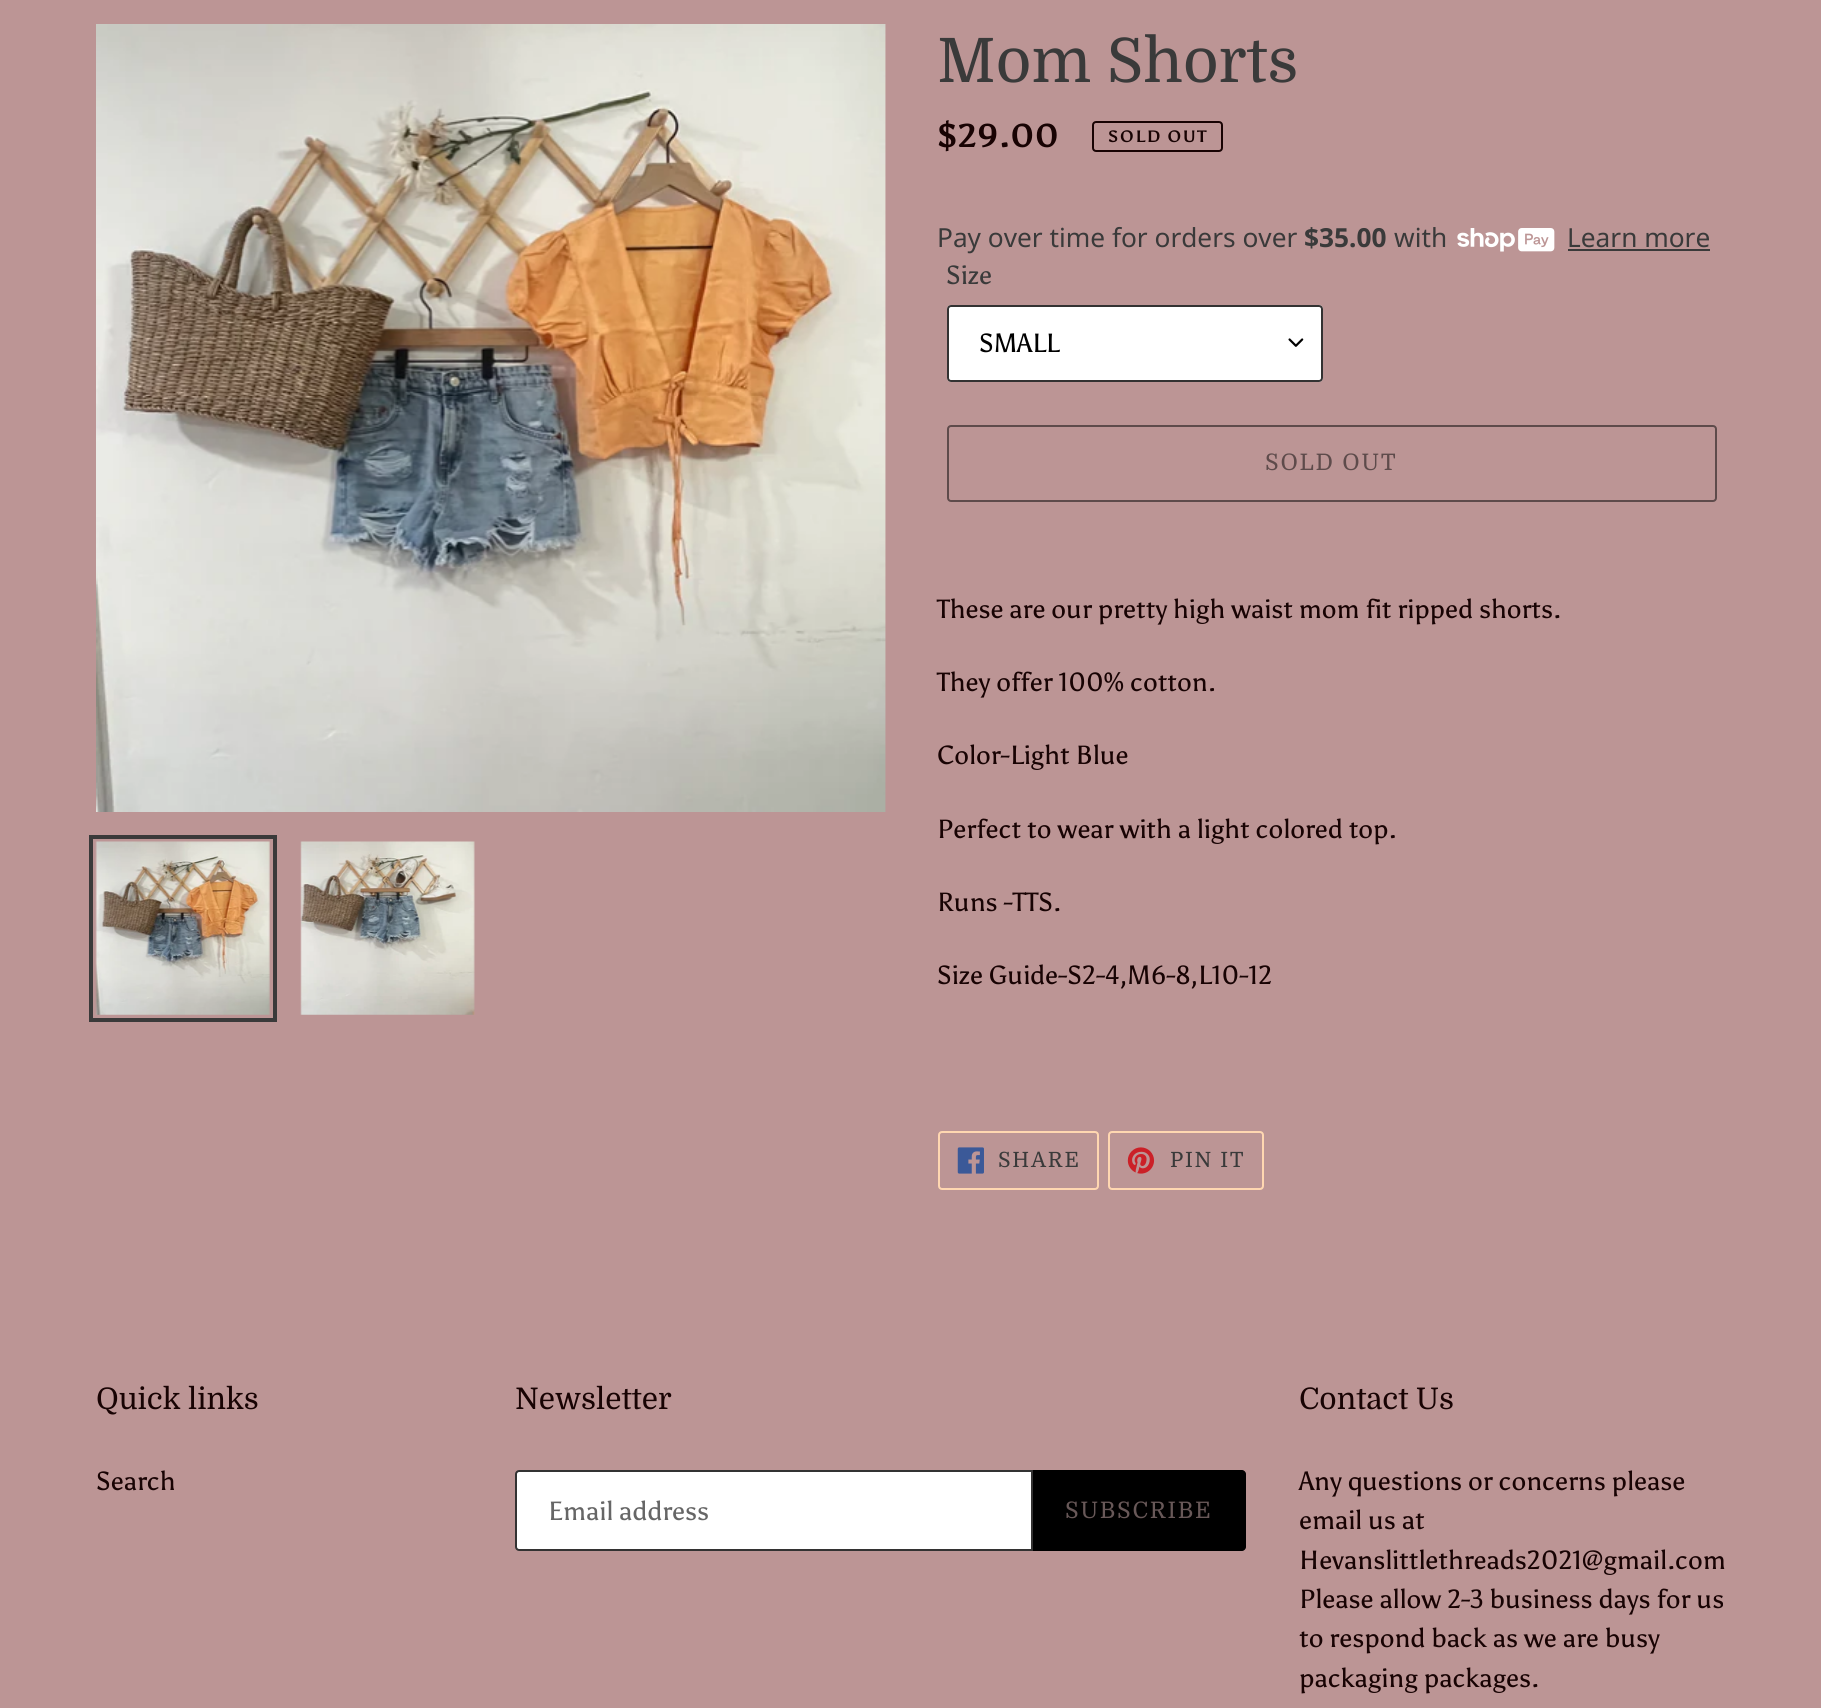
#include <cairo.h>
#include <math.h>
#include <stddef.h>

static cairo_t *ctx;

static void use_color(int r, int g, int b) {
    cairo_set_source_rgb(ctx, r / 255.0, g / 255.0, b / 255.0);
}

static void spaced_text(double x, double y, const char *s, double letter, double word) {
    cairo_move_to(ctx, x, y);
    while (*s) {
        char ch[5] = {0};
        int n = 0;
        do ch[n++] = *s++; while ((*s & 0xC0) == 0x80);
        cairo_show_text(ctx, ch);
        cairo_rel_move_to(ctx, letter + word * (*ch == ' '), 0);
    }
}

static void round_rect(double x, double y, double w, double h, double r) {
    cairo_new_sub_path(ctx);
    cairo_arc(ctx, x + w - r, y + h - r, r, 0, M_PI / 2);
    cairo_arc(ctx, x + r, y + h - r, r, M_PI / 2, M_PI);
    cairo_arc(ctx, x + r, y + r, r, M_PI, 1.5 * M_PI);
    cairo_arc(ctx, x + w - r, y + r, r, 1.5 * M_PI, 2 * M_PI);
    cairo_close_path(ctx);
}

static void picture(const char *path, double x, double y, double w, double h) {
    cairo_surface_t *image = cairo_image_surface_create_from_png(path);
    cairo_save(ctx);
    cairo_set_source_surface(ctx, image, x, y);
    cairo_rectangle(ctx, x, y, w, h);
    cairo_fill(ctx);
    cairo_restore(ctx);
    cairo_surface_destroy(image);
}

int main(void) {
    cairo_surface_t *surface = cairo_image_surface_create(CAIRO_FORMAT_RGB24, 1821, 1708);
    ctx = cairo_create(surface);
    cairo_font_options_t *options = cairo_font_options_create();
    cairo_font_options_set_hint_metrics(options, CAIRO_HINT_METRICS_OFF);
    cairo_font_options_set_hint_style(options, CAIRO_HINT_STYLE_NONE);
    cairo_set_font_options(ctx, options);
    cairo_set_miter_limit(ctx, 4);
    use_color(188, 149, 149);
    cairo_paint(ctx);
    picture("img1.png", 96, 24, 790, 788);
    cairo_rectangle(ctx, 91, 837, 184, 183);
    use_color(58, 58, 58);
    cairo_set_line_width(ctx, 4);
    cairo_stroke(ctx);
    picture("img2.png", 95, 841, 175, 174);
    picture("img3.png", 300, 841, 175, 174);
    cairo_select_font_face(ctx, "Domine", CAIRO_FONT_SLANT_NORMAL, CAIRO_FONT_WEIGHT_NORMAL);
    cairo_set_font_size(ctx, 61.25);
    cairo_move_to(ctx, 937, 82);
    cairo_show_text(ctx, "Mom Shorts");
    cairo_select_font_face(ctx, "Asul", CAIRO_FONT_SLANT_NORMAL, CAIRO_FONT_WEIGHT_BOLD);
    cairo_set_font_size(ctx, 33);
    use_color(24, 3, 3);
    cairo_move_to(ctx, 937, 147);
    cairo_show_text(ctx, "$29.00");
    round_rect(1093, 122, 129, 29, 3);
    cairo_set_line_width(ctx, 2);
    cairo_stroke(ctx);
    cairo_set_font_size(ctx, 16.5);
    spaced_text(1108, 142, "SOLD OUT", 1.75, 0);
    cairo_select_font_face(ctx, "Noto Sans", CAIRO_FONT_SLANT_NORMAL, CAIRO_FONT_WEIGHT_NORMAL);
    cairo_set_font_size(ctx, 26.25);
    use_color(58, 58, 58);
    cairo_move_to(ctx, 937, 247);
    cairo_show_text(ctx, "Pay over time for orders over");
    cairo_select_font_face(ctx, "Noto Sans", CAIRO_FONT_SLANT_NORMAL, CAIRO_FONT_WEIGHT_BOLD);
    cairo_move_to(ctx, 1304, 247);
    cairo_show_text(ctx, "$35.00");
    cairo_select_font_face(ctx, "Noto Sans", CAIRO_FONT_SLANT_NORMAL, CAIRO_FONT_WEIGHT_NORMAL);
    cairo_move_to(ctx, 1394, 247);
    cairo_show_text(ctx, "with");
    picture("img4.png", 1457, 228, 98, 24);
    cairo_move_to(ctx, 1567, 247);
    cairo_show_text(ctx, "Learn more");
    cairo_rectangle(ctx, 1568, 249, 142, 2);
    cairo_fill(ctx);
    cairo_select_font_face(ctx, "Asul", CAIRO_FONT_SLANT_NORMAL, CAIRO_FONT_WEIGHT_NORMAL);
    cairo_move_to(ctx, 946, 284);
    cairo_show_text(ctx, "Size");
    use_color(255, 255, 255);
    round_rect(947, 305, 376, 77, 4);
    cairo_fill(ctx);
    picture("img5.png", 1288, 338, 16, 9);
    round_rect(948, 306, 374, 75, 3);
    use_color(51, 50, 50);
    cairo_stroke(ctx);
    use_color(0, 0, 0);
    cairo_move_to(ctx, 979, 352);
    cairo_show_text(ctx, "SMALL");
    round_rect(948, 426, 768, 75, 3);
    use_color(94, 75, 75);
    cairo_stroke(ctx);
    cairo_select_font_face(ctx, "Domine", CAIRO_FONT_SLANT_NORMAL, CAIRO_FONT_WEIGHT_NORMAL);
    cairo_set_font_size(ctx, 22.75);
    spaced_text(1265, 470, "SOLD OUT", 1.75, 0);
    cairo_select_font_face(ctx, "Asul", CAIRO_FONT_SLANT_NORMAL, CAIRO_FONT_WEIGHT_NORMAL);
    cairo_set_font_size(ctx, 26.25);
    use_color(24, 3, 3);
    cairo_move_to(ctx, 937, 618);
    cairo_show_text(ctx, "These are our pretty high waist mom fit ripped shorts.");
    cairo_move_to(ctx, 937, 691);
    cairo_show_text(ctx, "They offer 100% cotton.");
    cairo_move_to(ctx, 937, 764);
    cairo_show_text(ctx, "Color-Light Blue");
    cairo_move_to(ctx, 937, 838);
    cairo_show_text(ctx, "Perfect to wear with a light colored top.");
    cairo_move_to(ctx, 937, 911);
    cairo_show_text(ctx, "Runs -TTS.");
    cairo_move_to(ctx, 937, 984);
    cairo_show_text(ctx, "Size Guide-S2-4,M6-8,L10-12");
    round_rect(939, 1132, 159, 57, 3);
    use_color(255, 215, 177);
    cairo_stroke(ctx);
    picture("img6.png", 957, 1147, 27, 27);
    cairo_select_font_face(ctx, "Domine", CAIRO_FONT_SLANT_NORMAL, CAIRO_FONT_WEIGHT_NORMAL);
    cairo_set_font_size(ctx, 21);
    use_color(58, 58, 58);
    spaced_text(998, 1167, "SHARE", 1.75, 0);
    round_rect(1109, 1132, 154, 57, 3);
    use_color(255, 215, 177);
    cairo_stroke(ctx);
    picture("img7.png", 1127, 1147, 28, 27);
    use_color(58, 58, 58);
    spaced_text(1170, 1167, "PIN IT", 1.75, 0);
    cairo_set_font_size(ctx, 29.75);
    use_color(24, 3, 3);
    cairo_move_to(ctx, 96, 1409);
    cairo_show_text(ctx, "Quick links");
    cairo_select_font_face(ctx, "Asul", CAIRO_FONT_SLANT_NORMAL, CAIRO_FONT_WEIGHT_NORMAL);
    cairo_set_font_size(ctx, 26.25);
    cairo_move_to(ctx, 96, 1490);
    cairo_show_text(ctx, "Search");
    cairo_select_font_face(ctx, "Domine", CAIRO_FONT_SLANT_NORMAL, CAIRO_FONT_WEIGHT_NORMAL);
    cairo_set_font_size(ctx, 29.75);
    cairo_move_to(ctx, 515, 1409);
    cairo_show_text(ctx, "Newsletter");
    use_color(255, 255, 255);
    cairo_new_path(ctx);
    cairo_move_to(ctx, 519, 1471);
    cairo_line_to(ctx, 1032, 1471);
    cairo_line_to(ctx, 1032, 1550);
    cairo_line_to(ctx, 519, 1550);
    cairo_curve_to(ctx, 517.5, 1550, 516, 1548.5, 516, 1547);
    cairo_line_to(ctx, 516, 1474);
    cairo_curve_to(ctx, 516, 1472.5, 517.5, 1471, 519, 1471);
    cairo_close_path(ctx);
    cairo_fill_preserve(ctx);
    use_color(51, 50, 50);
    cairo_stroke(ctx);
    cairo_select_font_face(ctx, "Asul", CAIRO_FONT_SLANT_NORMAL, CAIRO_FONT_WEIGHT_NORMAL);
    cairo_set_font_size(ctx, 26.25);
    use_color(102, 102, 102);
    cairo_move_to(ctx, 548, 1520);
    cairo_show_text(ctx, "Email address");
    use_color(0, 0, 0);
    cairo_new_path(ctx);
    cairo_move_to(ctx, 1033, 1470);
    cairo_line_to(ctx, 1242, 1470);
    cairo_curve_to(ctx, 1244, 1470, 1246, 1472, 1246, 1474);
    cairo_line_to(ctx, 1246, 1547);
    cairo_curve_to(ctx, 1246, 1549, 1244, 1551, 1242, 1551);
    cairo_line_to(ctx, 1033, 1551);
    cairo_close_path(ctx);
    cairo_fill(ctx);
    cairo_select_font_face(ctx, "Domine", CAIRO_FONT_SLANT_NORMAL, CAIRO_FONT_WEIGHT_NORMAL);
    cairo_set_font_size(ctx, 22.75);
    use_color(104, 88, 88);
    spaced_text(1065, 1518, "SUBSCRIBE", 1.75, 0);
    cairo_set_font_size(ctx, 29.75);
    use_color(24, 3, 3);
    cairo_move_to(ctx, 1299, 1409);
    cairo_show_text(ctx, "Contact Us");
    cairo_select_font_face(ctx, "Asul", CAIRO_FONT_SLANT_NORMAL, CAIRO_FONT_WEIGHT_NORMAL);
    cairo_set_font_size(ctx, 26.25);
    cairo_move_to(ctx, 1299, 1490);
    cairo_show_text(ctx, "Any questions or concerns please");
    cairo_move_to(ctx, 1299, 1529);
    cairo_show_text(ctx, "email us at");
    cairo_move_to(ctx, 1299, 1569);
    cairo_show_text(ctx, "Hevanslittlethreads2021@gmail.com");
    cairo_move_to(ctx, 1299, 1608);
    cairo_show_text(ctx, "Please allow 2-3 business days for us");
    cairo_move_to(ctx, 1299, 1647);
    cairo_show_text(ctx, "to respond back as we are busy");
    cairo_move_to(ctx, 1299, 1687);
    cairo_show_text(ctx, "packaging packages.");
    cairo_surface_write_to_png(surface, "result.png");
    cairo_font_options_destroy(options);
    cairo_destroy(ctx);
    cairo_surface_destroy(surface);
    return 0;
}
